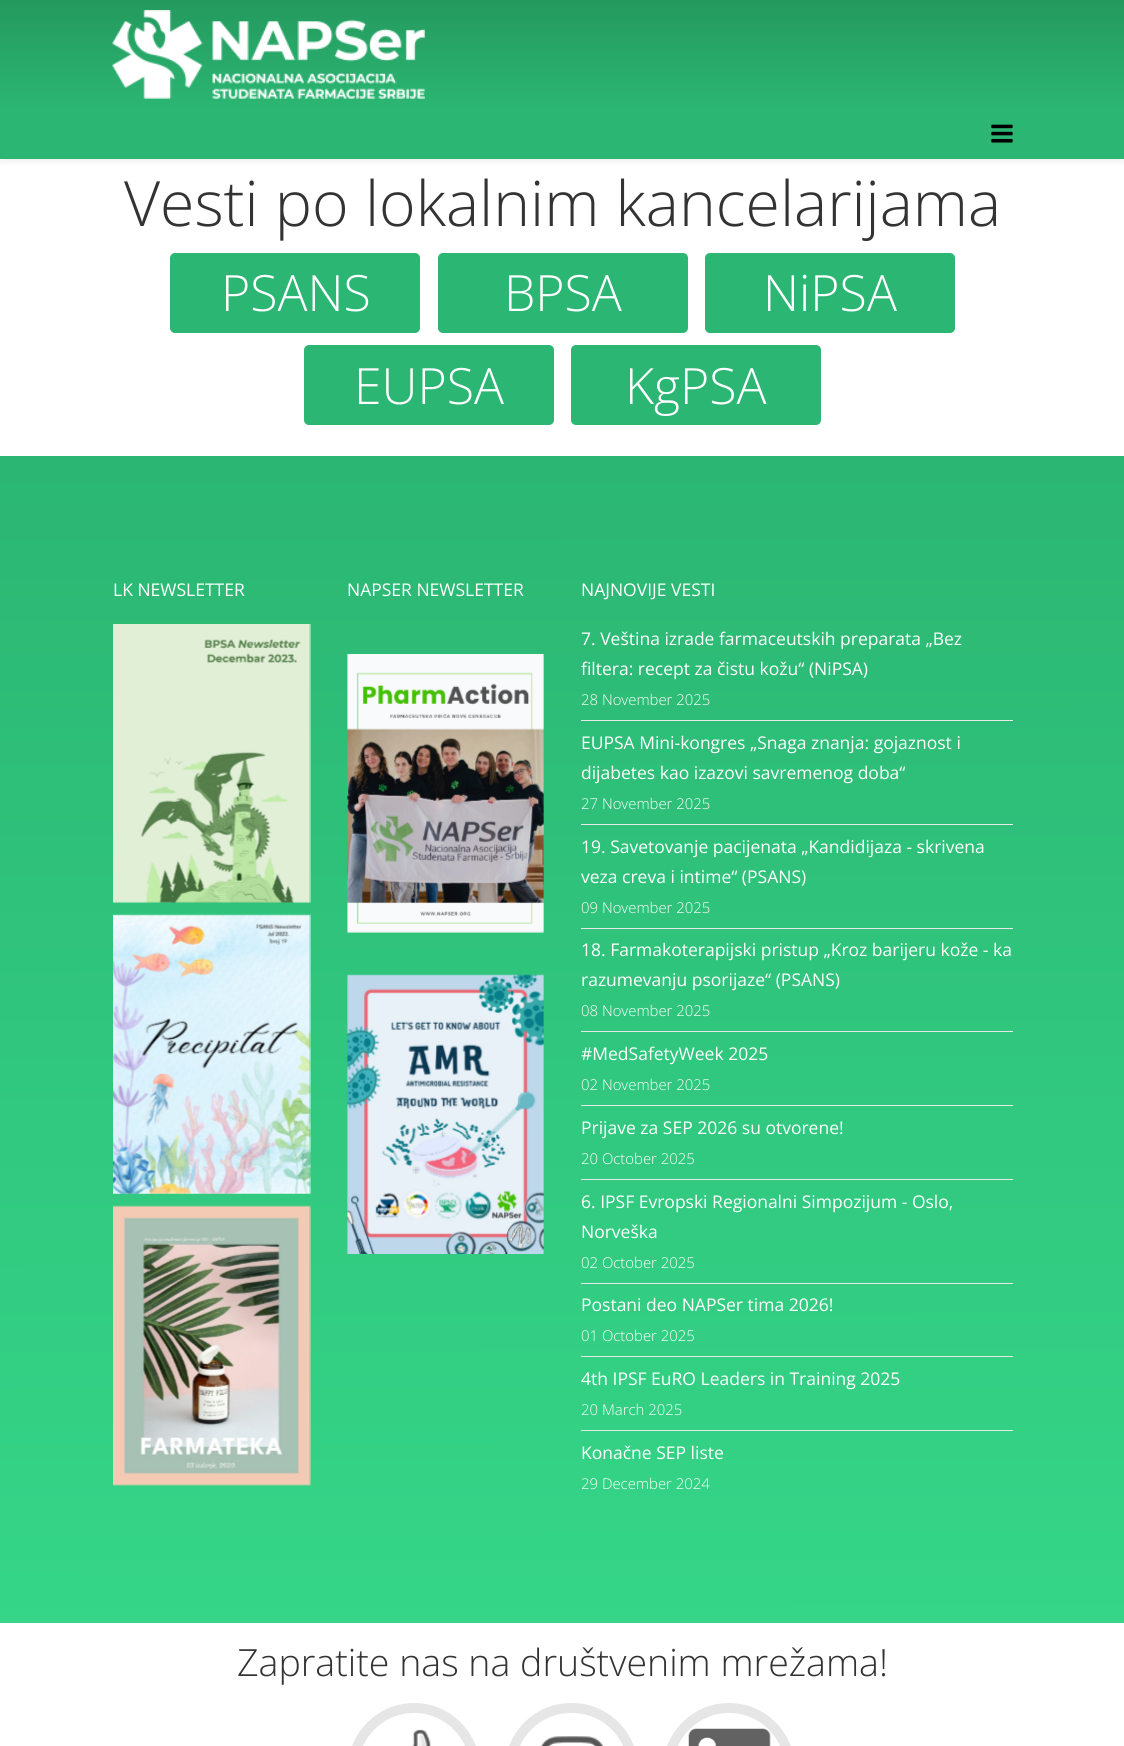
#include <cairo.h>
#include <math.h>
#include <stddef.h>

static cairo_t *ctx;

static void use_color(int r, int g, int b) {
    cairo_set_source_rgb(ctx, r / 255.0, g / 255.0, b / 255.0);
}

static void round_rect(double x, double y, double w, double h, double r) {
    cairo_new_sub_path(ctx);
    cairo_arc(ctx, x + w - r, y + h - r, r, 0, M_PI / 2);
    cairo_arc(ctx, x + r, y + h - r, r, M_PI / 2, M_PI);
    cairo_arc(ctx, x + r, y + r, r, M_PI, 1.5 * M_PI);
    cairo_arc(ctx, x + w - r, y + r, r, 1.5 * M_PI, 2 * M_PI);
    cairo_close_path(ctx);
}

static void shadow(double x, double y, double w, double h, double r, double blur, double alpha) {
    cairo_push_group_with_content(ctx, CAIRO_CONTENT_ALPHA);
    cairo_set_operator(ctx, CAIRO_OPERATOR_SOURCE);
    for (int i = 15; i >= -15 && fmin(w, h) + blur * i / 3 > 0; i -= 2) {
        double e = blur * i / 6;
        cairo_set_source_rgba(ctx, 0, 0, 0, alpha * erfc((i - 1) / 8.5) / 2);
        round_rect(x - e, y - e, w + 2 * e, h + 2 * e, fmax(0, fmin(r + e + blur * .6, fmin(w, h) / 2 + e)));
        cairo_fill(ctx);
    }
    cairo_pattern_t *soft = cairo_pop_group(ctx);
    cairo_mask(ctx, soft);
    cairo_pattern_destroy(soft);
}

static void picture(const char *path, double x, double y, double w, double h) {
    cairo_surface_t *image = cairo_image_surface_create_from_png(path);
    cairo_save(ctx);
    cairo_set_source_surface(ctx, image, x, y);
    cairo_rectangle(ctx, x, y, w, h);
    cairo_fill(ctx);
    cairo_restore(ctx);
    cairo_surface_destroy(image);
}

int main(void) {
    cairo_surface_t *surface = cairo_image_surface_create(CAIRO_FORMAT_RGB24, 1124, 1746);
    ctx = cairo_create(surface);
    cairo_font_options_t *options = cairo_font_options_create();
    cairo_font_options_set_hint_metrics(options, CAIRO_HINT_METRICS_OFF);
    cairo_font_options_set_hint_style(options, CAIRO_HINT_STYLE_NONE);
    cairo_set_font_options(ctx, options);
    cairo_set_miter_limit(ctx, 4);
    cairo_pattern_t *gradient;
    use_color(255, 255, 255);
    cairo_paint(ctx);
    gradient = cairo_pattern_create_linear(563, 0, 563, 109);
    cairo_pattern_add_color_stop_rgba(gradient, 0, 0.141, 0.6, 0.369, 1);
    cairo_pattern_add_color_stop_rgba(gradient, 1, 0.169, 0.714, 0.451, 1);
    cairo_set_source(ctx, gradient);
    cairo_pattern_destroy(gradient);
    cairo_rectangle(ctx, 0, 0, 1124, 109);
    cairo_fill(ctx);
    picture("img1.png", 112, 10, 313, 89);
    use_color(0, 0, 0);
    shadow(0, 113, 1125, 50, 0, 2, 0.05);
    use_color(43, 182, 115);
    cairo_rectangle(ctx, 0, 109, 1124, 50);
    cairo_fill(ctx);
    picture("img2.png", 991, 124, 22, 19);
    cairo_select_font_face(ctx, "Open Sans Light", CAIRO_FONT_SLANT_NORMAL, CAIRO_FONT_WEIGHT_NORMAL);
    cairo_set_font_size(ctx, 62.5);
    use_color(51, 51, 51);
    cairo_move_to(ctx, 124, 226);
    cairo_show_text(ctx, "Vesti po lokalnim kancelarijama");
    use_color(43, 182, 115);
    round_rect(170, 253, 250, 80, 5);
    cairo_fill(ctx);
    cairo_set_font_size(ctx, 50);
    use_color(255, 255, 255);
    cairo_move_to(ctx, 221, 311);
    cairo_show_text(ctx, "PSANS");
    use_color(43, 182, 115);
    round_rect(438, 253, 250, 80, 5);
    cairo_fill(ctx);
    use_color(255, 255, 255);
    cairo_move_to(ctx, 504, 311);
    cairo_show_text(ctx, "BPSA");
    use_color(43, 182, 115);
    round_rect(705, 253, 250, 80, 5);
    cairo_fill(ctx);
    use_color(255, 255, 255);
    cairo_move_to(ctx, 763, 311);
    cairo_show_text(ctx, "NiPSA");
    use_color(43, 182, 115);
    round_rect(304, 345, 250, 80, 5);
    cairo_fill(ctx);
    use_color(255, 255, 255);
    cairo_move_to(ctx, 354, 404);
    cairo_show_text(ctx, "EUPSA");
    use_color(43, 182, 115);
    round_rect(571, 345, 250, 80, 5);
    cairo_fill(ctx);
    use_color(255, 255, 255);
    cairo_move_to(ctx, 625, 404);
    cairo_show_text(ctx, "KgPSA");
    gradient = cairo_pattern_create_linear(562, 456, 563, 1623);
    cairo_pattern_add_color_stop_rgba(gradient, 0, 0.169, 0.714, 0.451, 1);
    cairo_pattern_add_color_stop_rgba(gradient, 1, 0.208, 0.839, 0.533, 1);
    cairo_set_source(ctx, gradient);
    cairo_pattern_destroy(gradient);
    cairo_rectangle(ctx, 0, 456, 1124, 1167);
    cairo_fill(ctx);
    cairo_select_font_face(ctx, "Open Sans", CAIRO_FONT_SLANT_NORMAL, CAIRO_FONT_WEIGHT_NORMAL);
    cairo_set_font_size(ctx, 17.5);
    use_color(255, 255, 255);
    cairo_move_to(ctx, 113, 596);
    cairo_show_text(ctx, "LK NEWSLETTER");
    picture("img3.png", 113, 624, 198, 279);
    picture("img4.png", 113, 914, 198, 280);
    picture("img5.png", 113, 1205, 198, 281);
    cairo_move_to(ctx, 347, 596);
    cairo_show_text(ctx, "NAPSER NEWSLETTER");
    picture("img6.png", 347, 654, 197, 279);
    picture("img7.png", 347, 974, 197, 280);
    cairo_move_to(ctx, 581, 596);
    cairo_show_text(ctx, "NAJNOVIJE VESTI");
    use_color(232, 232, 232);
    cairo_rectangle(ctx, 581, 720, 432, 1);
    cairo_fill(ctx);
    use_color(255, 255, 255);
    cairo_move_to(ctx, 581, 645);
    cairo_show_text(ctx, "7. Veština izrade farmaceutskih preparata „Bez");
    cairo_move_to(ctx, 581, 675);
    cairo_show_text(ctx, "filtera: recept za čistu kožu“ (NiPSA)");
    cairo_select_font_face(ctx, "Open Sans Light", CAIRO_FONT_SLANT_NORMAL, CAIRO_FONT_WEIGHT_NORMAL);
    cairo_set_font_size(ctx, 14.9);
    cairo_move_to(ctx, 581, 705);
    cairo_show_text(ctx, "28 November 2025");
    use_color(232, 232, 232);
    cairo_rectangle(ctx, 581, 824, 432, 1);
    cairo_fill(ctx);
    cairo_select_font_face(ctx, "Open Sans", CAIRO_FONT_SLANT_NORMAL, CAIRO_FONT_WEIGHT_NORMAL);
    cairo_set_font_size(ctx, 17.5);
    use_color(255, 255, 255);
    cairo_move_to(ctx, 581, 749);
    cairo_show_text(ctx, "EUPSA Mini-kongres „Snaga znanja: gojaznost i");
    cairo_move_to(ctx, 581, 779);
    cairo_show_text(ctx, "dijabetes kao izazovi savremenog doba“");
    cairo_select_font_face(ctx, "Open Sans Light", CAIRO_FONT_SLANT_NORMAL, CAIRO_FONT_WEIGHT_NORMAL);
    cairo_set_font_size(ctx, 14.9);
    cairo_move_to(ctx, 581, 809);
    cairo_show_text(ctx, "27 November 2025");
    use_color(232, 232, 232);
    cairo_rectangle(ctx, 581, 928, 432, 1);
    cairo_fill(ctx);
    cairo_select_font_face(ctx, "Open Sans", CAIRO_FONT_SLANT_NORMAL, CAIRO_FONT_WEIGHT_NORMAL);
    cairo_set_font_size(ctx, 17.5);
    use_color(255, 255, 255);
    cairo_move_to(ctx, 581, 853);
    cairo_show_text(ctx, "19. Savetovanje pacijenata „Kandidijaza - skrivena");
    cairo_move_to(ctx, 581, 883);
    cairo_show_text(ctx, "veza creva i intime“ (PSANS)");
    cairo_select_font_face(ctx, "Open Sans Light", CAIRO_FONT_SLANT_NORMAL, CAIRO_FONT_WEIGHT_NORMAL);
    cairo_set_font_size(ctx, 14.9);
    cairo_move_to(ctx, 581, 913);
    cairo_show_text(ctx, "09 November 2025");
    use_color(232, 232, 232);
    cairo_rectangle(ctx, 581, 1031, 432, 1);
    cairo_fill(ctx);
    cairo_select_font_face(ctx, "Open Sans", CAIRO_FONT_SLANT_NORMAL, CAIRO_FONT_WEIGHT_NORMAL);
    cairo_set_font_size(ctx, 17.5);
    use_color(255, 255, 255);
    cairo_move_to(ctx, 581, 956);
    cairo_show_text(ctx, "18. Farmakoterapijski pristup „Kroz barijeru kože - ka");
    cairo_move_to(ctx, 581, 986);
    cairo_show_text(ctx, "razumevanju psorijaze“ (PSANS)");
    cairo_select_font_face(ctx, "Open Sans Light", CAIRO_FONT_SLANT_NORMAL, CAIRO_FONT_WEIGHT_NORMAL);
    cairo_set_font_size(ctx, 14.9);
    cairo_move_to(ctx, 581, 1016);
    cairo_show_text(ctx, "08 November 2025");
    use_color(232, 232, 232);
    cairo_rectangle(ctx, 581, 1105, 432, 1);
    cairo_fill(ctx);
    cairo_select_font_face(ctx, "Open Sans", CAIRO_FONT_SLANT_NORMAL, CAIRO_FONT_WEIGHT_NORMAL);
    cairo_set_font_size(ctx, 17.5);
    use_color(255, 255, 255);
    cairo_move_to(ctx, 581, 1060);
    cairo_show_text(ctx, "#MedSafetyWeek 2025");
    cairo_select_font_face(ctx, "Open Sans Light", CAIRO_FONT_SLANT_NORMAL, CAIRO_FONT_WEIGHT_NORMAL);
    cairo_set_font_size(ctx, 14.9);
    cairo_move_to(ctx, 581, 1090);
    cairo_show_text(ctx, "02 November 2025");
    use_color(232, 232, 232);
    cairo_rectangle(ctx, 581, 1179, 432, 1);
    cairo_fill(ctx);
    cairo_select_font_face(ctx, "Open Sans", CAIRO_FONT_SLANT_NORMAL, CAIRO_FONT_WEIGHT_NORMAL);
    cairo_set_font_size(ctx, 17.5);
    use_color(255, 255, 255);
    cairo_move_to(ctx, 581, 1134);
    cairo_show_text(ctx, "Prijave za SEP 2026 su otvorene!");
    cairo_select_font_face(ctx, "Open Sans Light", CAIRO_FONT_SLANT_NORMAL, CAIRO_FONT_WEIGHT_NORMAL);
    cairo_set_font_size(ctx, 14.9);
    cairo_move_to(ctx, 581, 1164);
    cairo_show_text(ctx, "20 October 2025");
    use_color(232, 232, 232);
    cairo_rectangle(ctx, 581, 1283, 432, 1);
    cairo_fill(ctx);
    cairo_select_font_face(ctx, "Open Sans", CAIRO_FONT_SLANT_NORMAL, CAIRO_FONT_WEIGHT_NORMAL);
    cairo_set_font_size(ctx, 17.5);
    use_color(255, 255, 255);
    cairo_move_to(ctx, 581, 1208);
    cairo_show_text(ctx, "6. IPSF Evropski Regionalni Simpozijum - Oslo,");
    cairo_move_to(ctx, 581, 1238);
    cairo_show_text(ctx, "Norveška");
    cairo_select_font_face(ctx, "Open Sans Light", CAIRO_FONT_SLANT_NORMAL, CAIRO_FONT_WEIGHT_NORMAL);
    cairo_set_font_size(ctx, 14.9);
    cairo_move_to(ctx, 581, 1268);
    cairo_show_text(ctx, "02 October 2025");
    use_color(232, 232, 232);
    cairo_rectangle(ctx, 581, 1356, 432, 1);
    cairo_fill(ctx);
    cairo_select_font_face(ctx, "Open Sans", CAIRO_FONT_SLANT_NORMAL, CAIRO_FONT_WEIGHT_NORMAL);
    cairo_set_font_size(ctx, 17.5);
    use_color(255, 255, 255);
    cairo_move_to(ctx, 581, 1311);
    cairo_show_text(ctx, "Postani deo NAPSer tima 2026!");
    cairo_select_font_face(ctx, "Open Sans Light", CAIRO_FONT_SLANT_NORMAL, CAIRO_FONT_WEIGHT_NORMAL);
    cairo_set_font_size(ctx, 14.9);
    cairo_move_to(ctx, 581, 1341);
    cairo_show_text(ctx, "01 October 2025");
    use_color(232, 232, 232);
    cairo_rectangle(ctx, 581, 1430, 432, 1);
    cairo_fill(ctx);
    cairo_select_font_face(ctx, "Open Sans", CAIRO_FONT_SLANT_NORMAL, CAIRO_FONT_WEIGHT_NORMAL);
    cairo_set_font_size(ctx, 17.5);
    use_color(255, 255, 255);
    cairo_move_to(ctx, 581, 1385);
    cairo_show_text(ctx, "4th IPSF EuRO Leaders in Training 2025");
    cairo_select_font_face(ctx, "Open Sans Light", CAIRO_FONT_SLANT_NORMAL, CAIRO_FONT_WEIGHT_NORMAL);
    cairo_set_font_size(ctx, 14.9);
    cairo_move_to(ctx, 581, 1415);
    cairo_show_text(ctx, "20 March 2025");
    cairo_select_font_face(ctx, "Open Sans", CAIRO_FONT_SLANT_NORMAL, CAIRO_FONT_WEIGHT_NORMAL);
    cairo_set_font_size(ctx, 17.5);
    cairo_move_to(ctx, 581, 1459);
    cairo_show_text(ctx, "Konačne SEP liste");
    cairo_select_font_face(ctx, "Open Sans Light", CAIRO_FONT_SLANT_NORMAL, CAIRO_FONT_WEIGHT_NORMAL);
    cairo_set_font_size(ctx, 14.9);
    cairo_move_to(ctx, 581, 1489);
    cairo_show_text(ctx, "29 December 2024");
    cairo_set_font_size(ctx, 37.5);
    use_color(51, 51, 51);
    cairo_move_to(ctx, 237, 1676);
    cairo_show_text(ctx, "Zapratite nas na društvenim mrežama!");
    round_rect(353, 1708, 122, 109, 61);
    use_color(230, 230, 230);
    cairo_set_line_width(ctx, 10);
    cairo_stroke(ctx);
    picture("img8.png", 412, 1729, 19, 17);
    round_rect(510, 1708, 123, 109, 61);
    cairo_stroke(ctx);
    picture("img9.png", 540, 1736, 64, 10);
    round_rect(668, 1708, 122, 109, 61);
    cairo_stroke(ctx);
    picture("img10.png", 688, 1728, 83, 18);
    cairo_surface_write_to_png(surface, "result.png");
    cairo_font_options_destroy(options);
    cairo_destroy(ctx);
    cairo_surface_destroy(surface);
    return 0;
}
